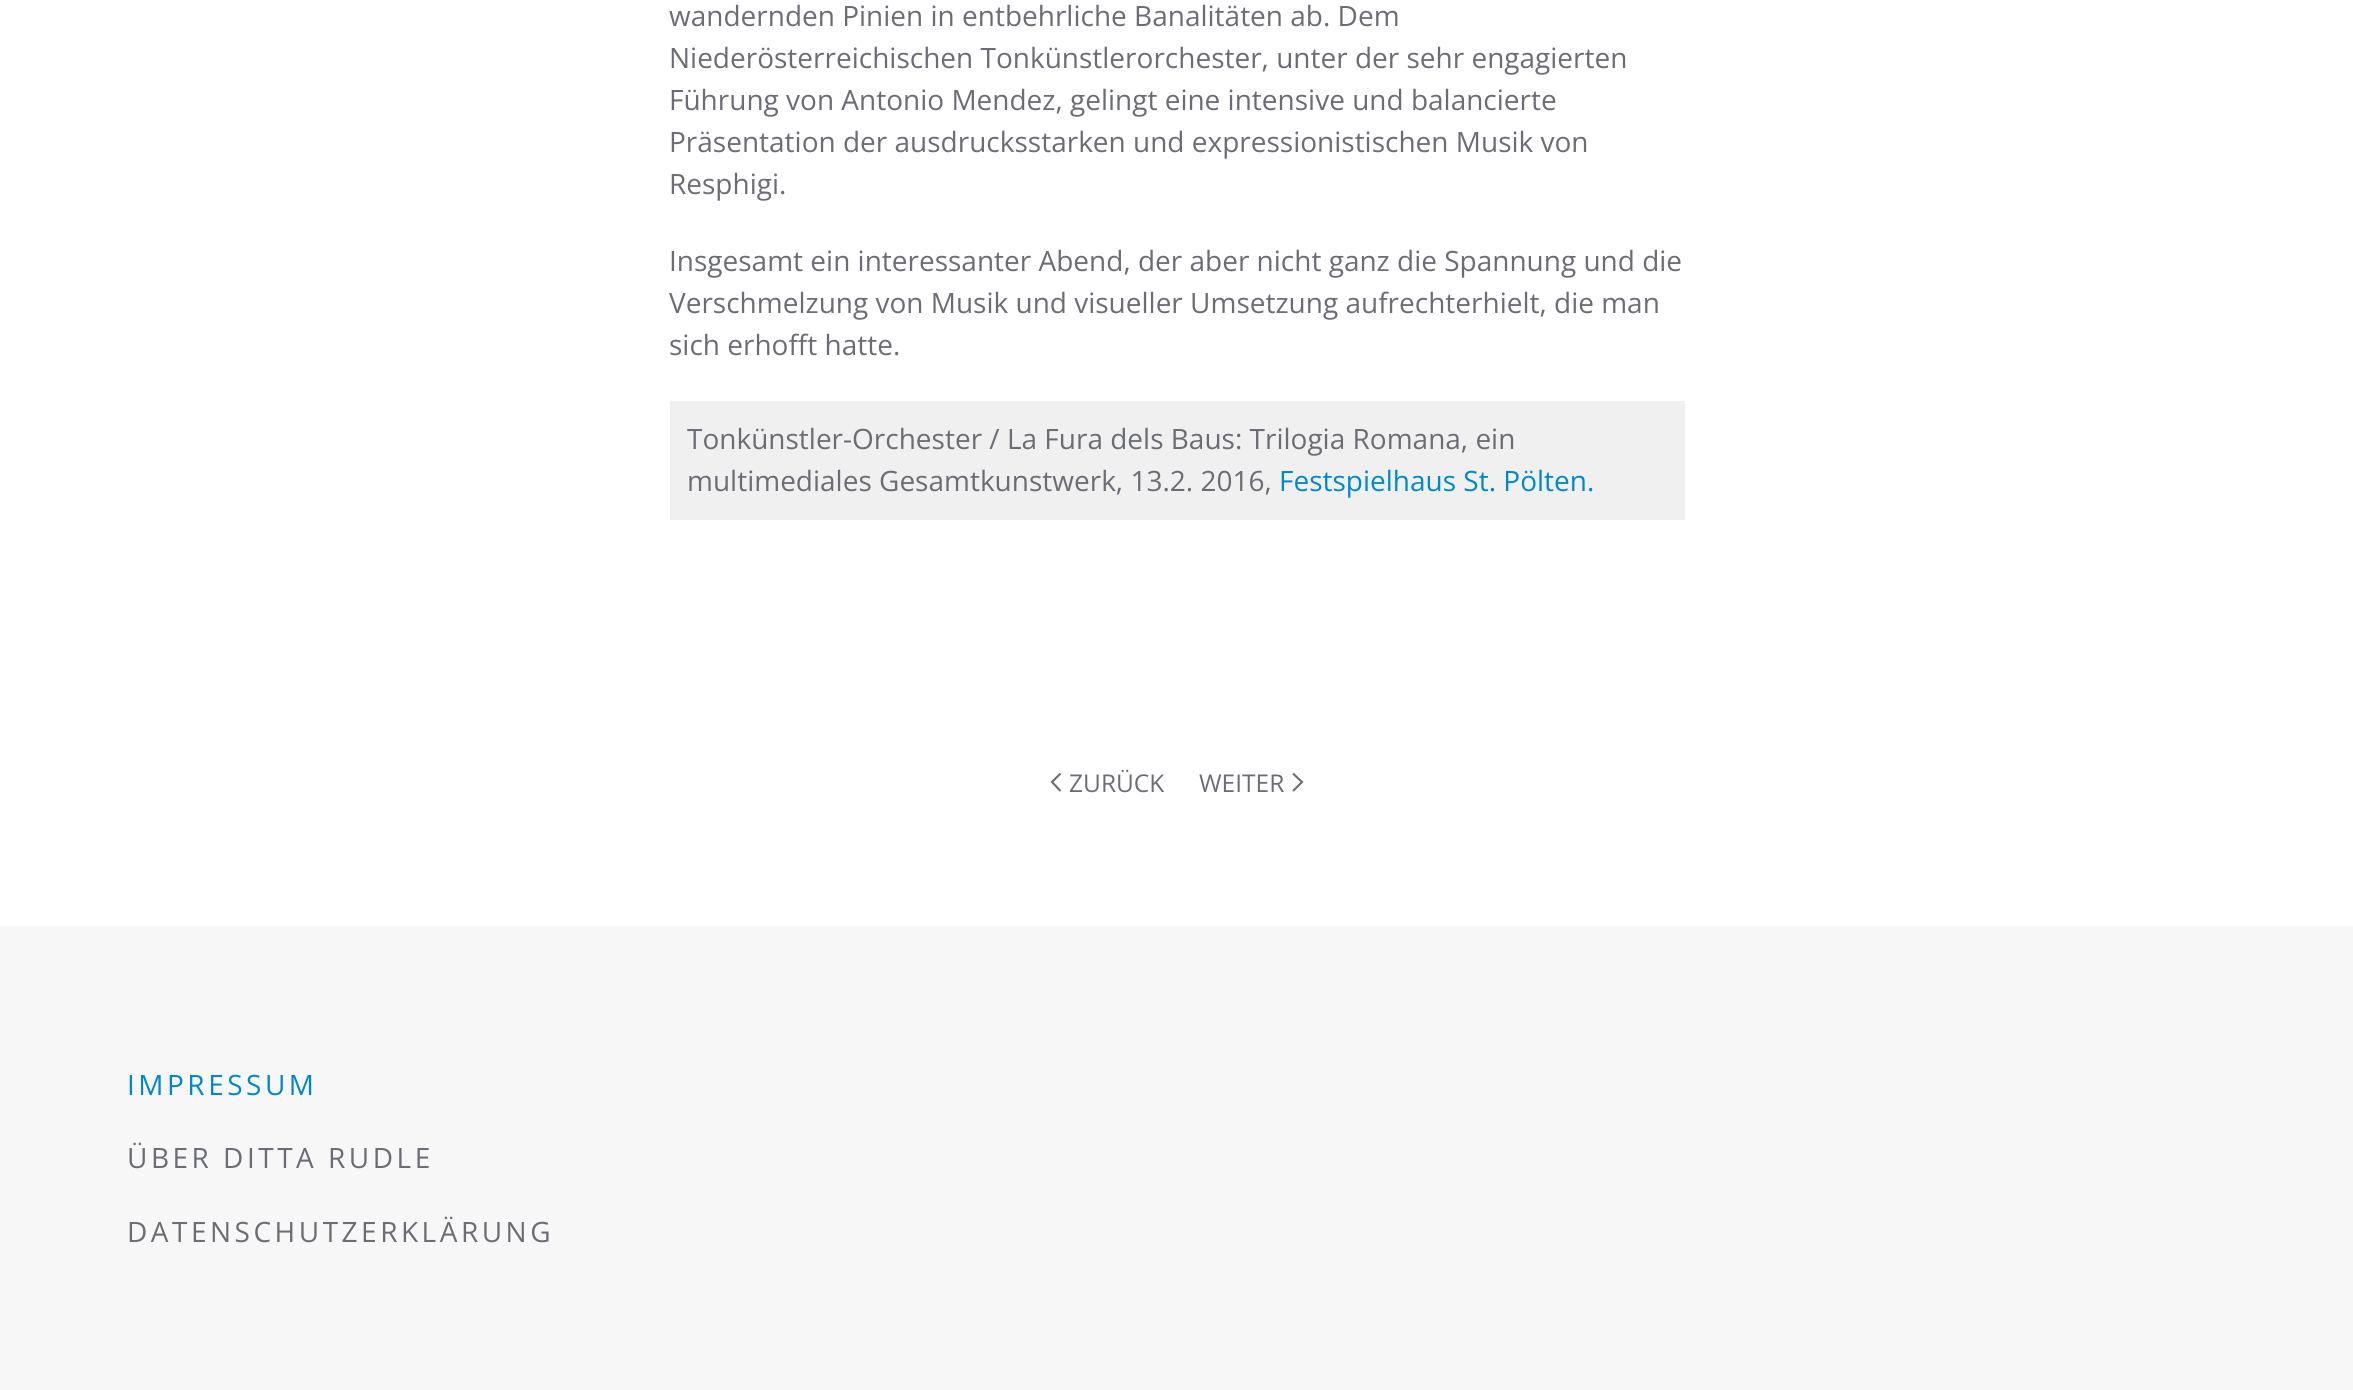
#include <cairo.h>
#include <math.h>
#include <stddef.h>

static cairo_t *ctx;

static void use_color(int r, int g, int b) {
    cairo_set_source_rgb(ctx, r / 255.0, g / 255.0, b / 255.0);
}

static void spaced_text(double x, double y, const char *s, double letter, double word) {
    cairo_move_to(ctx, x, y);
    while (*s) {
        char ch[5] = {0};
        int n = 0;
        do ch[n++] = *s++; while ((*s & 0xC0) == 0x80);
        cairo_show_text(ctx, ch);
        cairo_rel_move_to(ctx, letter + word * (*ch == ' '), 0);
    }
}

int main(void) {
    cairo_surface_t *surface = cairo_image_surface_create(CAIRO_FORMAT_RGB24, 2353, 1390);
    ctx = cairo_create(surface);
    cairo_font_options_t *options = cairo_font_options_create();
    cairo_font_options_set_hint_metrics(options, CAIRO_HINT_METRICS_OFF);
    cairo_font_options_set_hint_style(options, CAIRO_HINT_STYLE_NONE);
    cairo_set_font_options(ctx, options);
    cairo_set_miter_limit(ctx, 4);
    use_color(255, 255, 255);
    cairo_paint(ctx);
    cairo_select_font_face(ctx, "Open Sans", CAIRO_FONT_SLANT_NORMAL, CAIRO_FONT_WEIGHT_NORMAL);
    cairo_set_font_size(ctx, 28);
    use_color(108, 109, 116);
    cairo_move_to(ctx, 669, 26);
    cairo_show_text(ctx, "wandernden Pinien in entbehrliche Banalitäten ab. Dem");
    cairo_move_to(ctx, 669, 68);
    cairo_show_text(ctx, "Niederösterreichischen Tonkünstlerorchester, unter der sehr engagierten");
    cairo_move_to(ctx, 669, 110);
    cairo_show_text(ctx, "Führung von Antonio Mendez, gelingt eine intensive und balancierte");
    cairo_move_to(ctx, 669, 152);
    cairo_show_text(ctx, "Präsentation der ausdrucksstarken und expressionistischen Musik von");
    cairo_move_to(ctx, 669, 194);
    cairo_show_text(ctx, "Resphigi.");
    cairo_move_to(ctx, 669, 271);
    cairo_show_text(ctx, "Insgesamt ein interessanter Abend, der aber nicht ganz die Spannung und die");
    cairo_move_to(ctx, 669, 313);
    cairo_show_text(ctx, "Verschmelzung von Musik und visueller Umsetzung aufrechterhielt, die man");
    cairo_move_to(ctx, 669, 355);
    cairo_show_text(ctx, "sich erhofft hatte.");
    use_color(240, 240, 240);
    cairo_rectangle(ctx, 670, 401, 1015, 119);
    cairo_fill(ctx);
    use_color(108, 109, 116);
    cairo_move_to(ctx, 687, 449);
    cairo_show_text(ctx, "Tonkünstler-Orchester / La Fura dels Baus: Trilogia Romana, ein");
    cairo_move_to(ctx, 687, 491);
    cairo_show_text(ctx, "multimediales Gesamtkunstwerk, 13.2. 2016,");
    use_color(0, 136, 204);
    cairo_move_to(ctx, 1279, 491);
    cairo_show_text(ctx, "Festspielhaus St. Pölten.");
    cairo_new_path(ctx);
    cairo_move_to(ctx, 1060.5, 773.5);
    cairo_line_to(ctx, 1052, 782);
    cairo_line_to(ctx, 1060.5, 791);
    use_color(108, 109, 116);
    cairo_set_line_width(ctx, 2.1);
    cairo_stroke(ctx);
    cairo_set_font_size(ctx, 24.5);
    cairo_move_to(ctx, 1069, 792);
    cairo_show_text(ctx, "ZURÜCK");
    cairo_move_to(ctx, 1199, 792);
    cairo_show_text(ctx, "WEITER");
    cairo_new_path(ctx);
    cairo_move_to(ctx, 1293, 773.5);
    cairo_line_to(ctx, 1302, 782);
    cairo_line_to(ctx, 1293, 791);
    cairo_stroke(ctx);
    use_color(247, 247, 247);
    cairo_rectangle(ctx, 0, 926, 2353, 464);
    cairo_fill(ctx);
    cairo_set_font_size(ctx, 28);
    use_color(0, 136, 204);
    spaced_text(127, 1095, "IMPRESSUM", 3.5, 0);
    use_color(108, 109, 116);
    spaced_text(127, 1168, "ÜBER DITTA RUDLE", 3.5, 0);
    spaced_text(127, 1242, "DATENSCHUTZERKLÄRUNG", 3.5, 0);
    cairo_surface_write_to_png(surface, "result.png");
    cairo_font_options_destroy(options);
    cairo_destroy(ctx);
    cairo_surface_destroy(surface);
    return 0;
}
